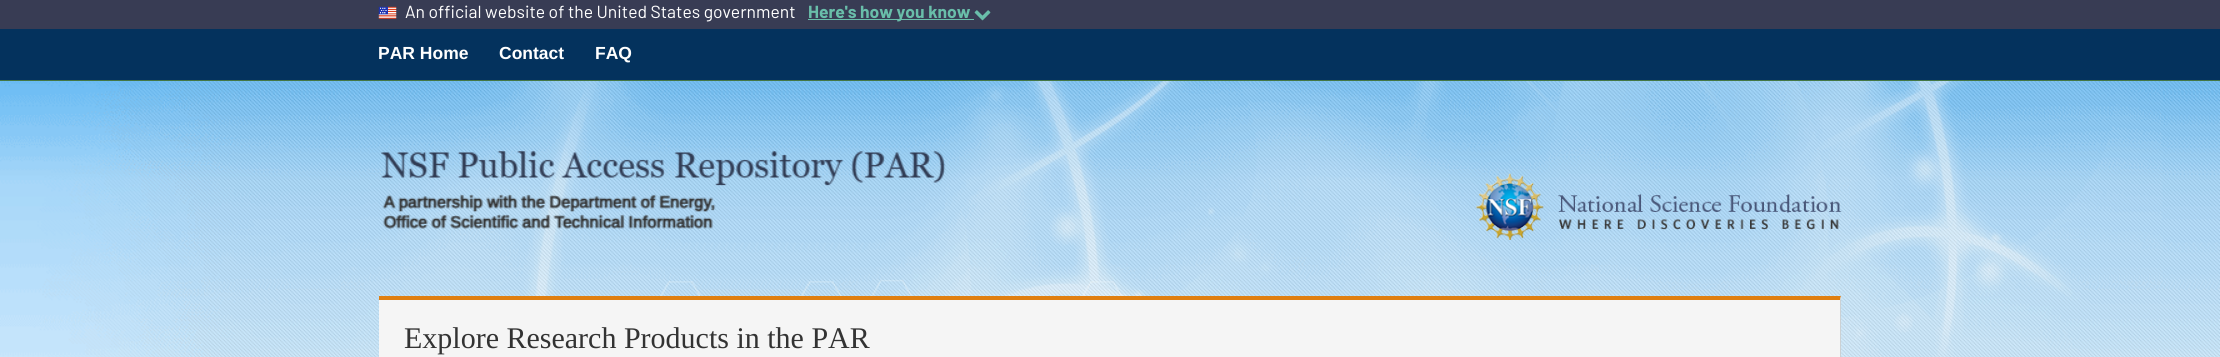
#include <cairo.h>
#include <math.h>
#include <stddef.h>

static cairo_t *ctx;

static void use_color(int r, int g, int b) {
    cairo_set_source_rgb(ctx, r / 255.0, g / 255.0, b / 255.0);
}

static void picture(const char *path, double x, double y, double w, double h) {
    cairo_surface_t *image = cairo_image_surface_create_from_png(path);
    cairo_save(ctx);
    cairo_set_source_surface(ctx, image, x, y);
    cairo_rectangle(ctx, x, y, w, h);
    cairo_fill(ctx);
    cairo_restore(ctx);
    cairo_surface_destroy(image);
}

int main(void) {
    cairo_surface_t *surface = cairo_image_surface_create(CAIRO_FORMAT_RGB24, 2220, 357);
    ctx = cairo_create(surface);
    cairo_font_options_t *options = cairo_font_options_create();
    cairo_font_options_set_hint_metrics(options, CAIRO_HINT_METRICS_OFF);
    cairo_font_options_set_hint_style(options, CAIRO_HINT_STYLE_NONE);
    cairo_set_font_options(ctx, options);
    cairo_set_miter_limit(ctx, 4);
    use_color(255, 255, 255);
    cairo_paint(ctx);
    picture("img1.png", 0, 81, 2220, 276);
    use_color(56, 60, 84);
    cairo_rectangle(ctx, 0, 0, 2220, 29);
    cairo_fill(ctx);
    picture("img2.png", 378, 6, 19, 13);
    cairo_select_font_face(ctx, "Barlow", CAIRO_FONT_SLANT_NORMAL, CAIRO_FONT_WEIGHT_NORMAL);
    cairo_set_font_size(ctx, 17.5);
    use_color(255, 255, 255);
    cairo_move_to(ctx, 405, 18);
    cairo_show_text(ctx, "An official website of the United States government");
    use_color(105, 190, 170);
    cairo_rectangle(ctx, 808, 19, 166, 1);
    cairo_fill(ctx);
    cairo_select_font_face(ctx, "Barlow", CAIRO_FONT_SLANT_NORMAL, CAIRO_FONT_WEIGHT_BOLD);
    cairo_move_to(ctx, 808, 18);
    cairo_show_text(ctx, "Here's how you know");
    picture("img3.png", 974, 10, 17, 11);
    use_color(4, 50, 93);
    cairo_rectangle(ctx, 0, 29, 2220, 51);
    cairo_fill(ctx);
    use_color(68, 119, 68);
    cairo_rectangle(ctx, 0, 80, 2220, 1);
    cairo_fill(ctx);
    cairo_select_font_face(ctx, "Liberation Sans", CAIRO_FONT_SLANT_NORMAL, CAIRO_FONT_WEIGHT_BOLD);
    use_color(255, 255, 255);
    cairo_move_to(ctx, 378, 59);
    cairo_show_text(ctx, "PAR Home");
    cairo_move_to(ctx, 499, 59);
    cairo_show_text(ctx, "Contact");
    cairo_move_to(ctx, 595, 59);
    cairo_show_text(ctx, "FAQ");
    picture("img4.png", 381, 151, 565, 78);
    picture("img5.png", 1476, 173, 366, 67);
    use_color(245, 245, 245);
    cairo_rectangle(ctx, 379, 296, 1462, 61);
    cairo_fill(ctx);
    use_color(224, 127, 17);
    cairo_new_path(ctx);
    cairo_move_to(ctx, 379, 296);
    cairo_line_to(ctx, 1841, 296);
    cairo_line_to(ctx, 1840, 300);
    cairo_line_to(ctx, 379, 300);
    cairo_close_path(ctx);
    cairo_fill(ctx);
    use_color(204, 209, 212);
    cairo_new_path(ctx);
    cairo_move_to(ctx, 1841, 296);
    cairo_line_to(ctx, 1841, 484);
    cairo_line_to(ctx, 1840, 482);
    cairo_line_to(ctx, 1840, 300);
    cairo_close_path(ctx);
    cairo_fill(ctx);
    cairo_select_font_face(ctx, "Liberation Serif", CAIRO_FONT_SLANT_NORMAL, CAIRO_FONT_WEIGHT_NORMAL);
    cairo_set_font_size(ctx, 30);
    use_color(51, 51, 51);
    cairo_move_to(ctx, 404, 348);
    cairo_show_text(ctx, "Explore Research Products in the PAR");
    cairo_surface_write_to_png(surface, "result.png");
    cairo_font_options_destroy(options);
    cairo_destroy(ctx);
    cairo_surface_destroy(surface);
    return 0;
}
